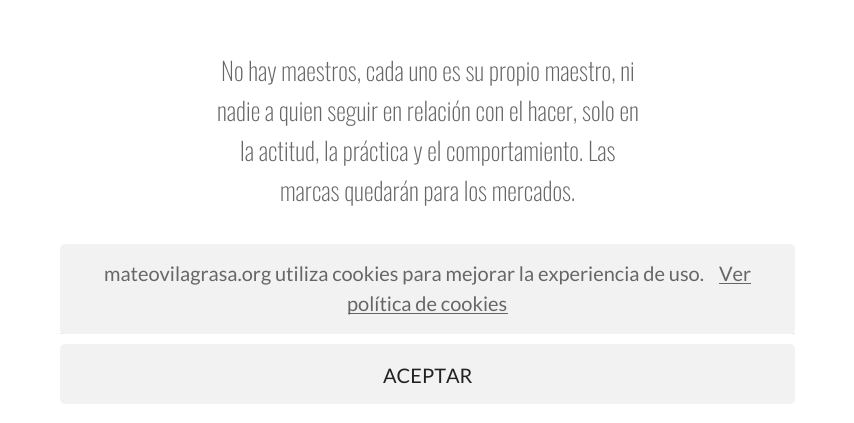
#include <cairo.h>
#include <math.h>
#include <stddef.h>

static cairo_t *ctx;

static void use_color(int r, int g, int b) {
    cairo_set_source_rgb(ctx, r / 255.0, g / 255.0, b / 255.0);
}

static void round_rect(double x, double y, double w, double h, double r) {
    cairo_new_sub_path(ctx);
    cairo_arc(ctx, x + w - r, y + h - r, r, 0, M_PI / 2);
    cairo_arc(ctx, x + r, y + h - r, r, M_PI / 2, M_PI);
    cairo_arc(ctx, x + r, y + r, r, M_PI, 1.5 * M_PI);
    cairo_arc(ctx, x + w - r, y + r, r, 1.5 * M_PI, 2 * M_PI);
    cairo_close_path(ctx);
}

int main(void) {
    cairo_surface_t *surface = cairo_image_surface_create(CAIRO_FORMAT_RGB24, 854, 423);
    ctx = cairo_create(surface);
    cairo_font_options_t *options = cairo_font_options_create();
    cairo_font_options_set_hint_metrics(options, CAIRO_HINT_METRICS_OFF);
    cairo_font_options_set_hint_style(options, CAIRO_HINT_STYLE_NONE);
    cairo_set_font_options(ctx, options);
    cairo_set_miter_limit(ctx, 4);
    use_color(255, 255, 255);
    cairo_paint(ctx);
    cairo_select_font_face(ctx, "Oswald ExtraLight", CAIRO_FONT_SLANT_NORMAL, CAIRO_FONT_WEIGHT_NORMAL);
    cairo_set_font_size(ctx, 25);
    use_color(102, 102, 102);
    cairo_move_to(ctx, 221, 81);
    cairo_show_text(ctx, "No hay maestros, cada uno es su propio maestro, ni");
    cairo_move_to(ctx, 217, 121);
    cairo_show_text(ctx, "nadie a quien seguir en relación con el hacer, solo en");
    cairo_move_to(ctx, 240, 161);
    cairo_show_text(ctx, "la actitud, la práctica y el comportamiento. Las");
    cairo_move_to(ctx, 280, 201);
    cairo_show_text(ctx, "marcas quedarán para los mercados.");
    use_color(230, 230, 230);
    cairo_rectangle(ctx, 60, 333, 735, 1);
    cairo_fill(ctx);
    use_color(242, 242, 242);
    round_rect(60, 244, 735, 90, 5);
    cairo_fill(ctx);
    cairo_select_font_face(ctx, "Lato", CAIRO_FONT_SLANT_NORMAL, CAIRO_FONT_WEIGHT_NORMAL);
    cairo_set_font_size(ctx, 20);
    use_color(102, 102, 102);
    cairo_move_to(ctx, 104, 281);
    cairo_show_text(ctx, "mateovilagrasa.org utiliza cookies para mejorar la experiencia de uso.");
    cairo_move_to(ctx, 719, 281);
    cairo_show_text(ctx, "Ver");
    cairo_rectangle(ctx, 719, 283, 32, 1);
    cairo_fill(ctx);
    cairo_rectangle(ctx, 348, 313, 160, 1);
    cairo_fill(ctx);
    cairo_move_to(ctx, 347, 311);
    cairo_show_text(ctx, "política de cookies");
    use_color(242, 242, 242);
    round_rect(60, 344, 735, 60, 5);
    cairo_fill(ctx);
    use_color(34, 34, 34);
    cairo_move_to(ctx, 383, 383);
    cairo_show_text(ctx, "ACEPTAR");
    cairo_surface_write_to_png(surface, "result.png");
    cairo_font_options_destroy(options);
    cairo_destroy(ctx);
    cairo_surface_destroy(surface);
    return 0;
}
